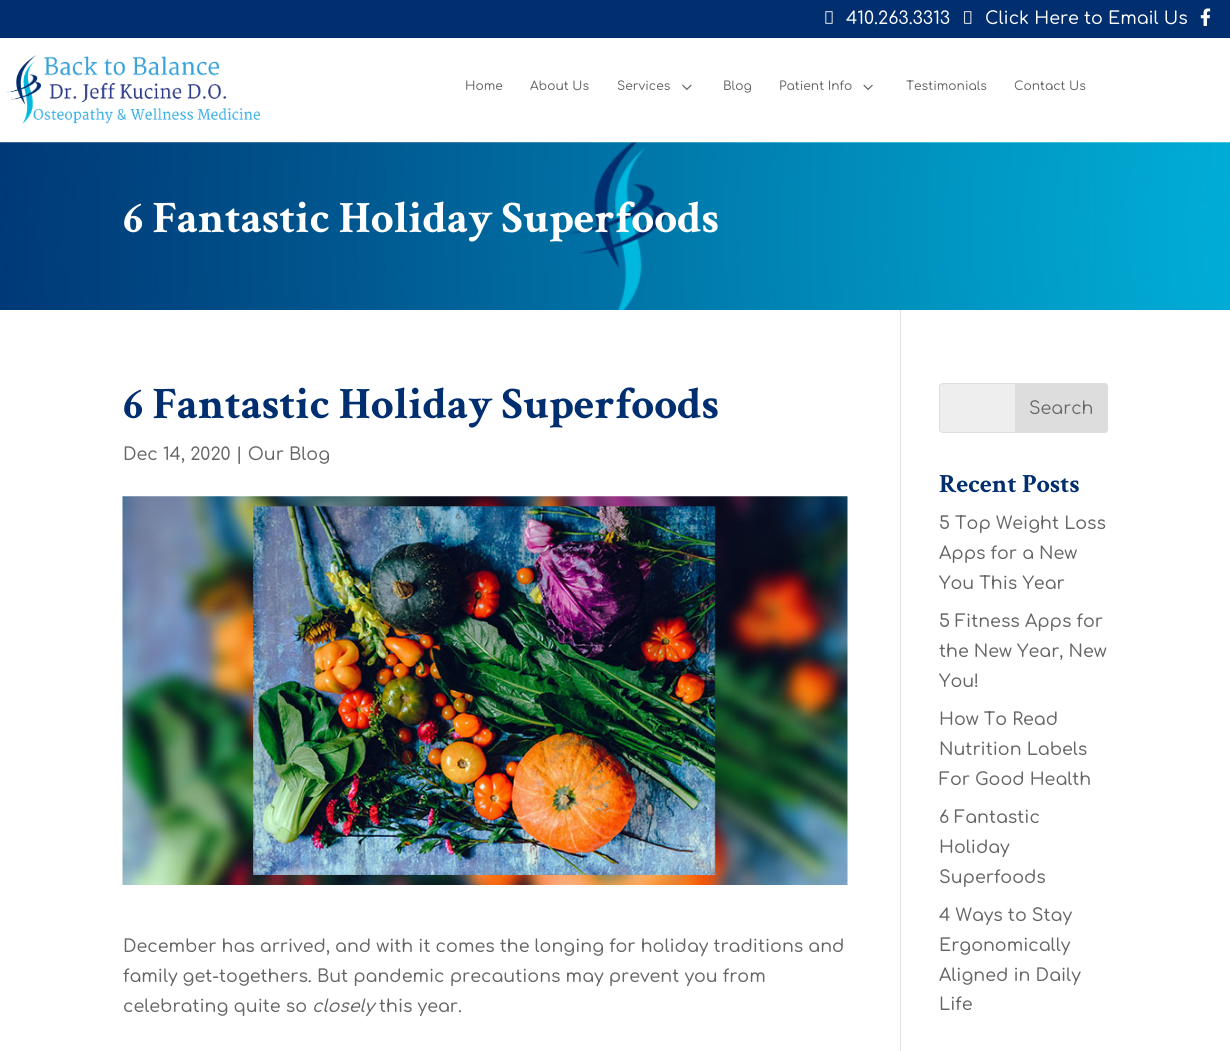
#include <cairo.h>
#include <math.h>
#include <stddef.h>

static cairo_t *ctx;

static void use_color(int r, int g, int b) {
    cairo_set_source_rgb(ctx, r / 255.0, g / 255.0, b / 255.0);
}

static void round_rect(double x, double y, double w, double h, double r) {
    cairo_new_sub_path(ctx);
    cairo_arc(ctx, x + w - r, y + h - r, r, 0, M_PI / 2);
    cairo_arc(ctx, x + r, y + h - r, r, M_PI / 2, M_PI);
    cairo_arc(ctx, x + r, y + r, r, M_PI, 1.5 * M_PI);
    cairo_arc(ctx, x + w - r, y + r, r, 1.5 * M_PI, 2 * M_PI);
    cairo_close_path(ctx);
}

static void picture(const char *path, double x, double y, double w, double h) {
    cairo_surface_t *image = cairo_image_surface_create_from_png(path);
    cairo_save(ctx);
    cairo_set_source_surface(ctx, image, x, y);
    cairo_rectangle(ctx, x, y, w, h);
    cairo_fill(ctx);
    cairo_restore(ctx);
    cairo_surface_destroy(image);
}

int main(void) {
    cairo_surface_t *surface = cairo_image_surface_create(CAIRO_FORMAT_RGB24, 1230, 1051);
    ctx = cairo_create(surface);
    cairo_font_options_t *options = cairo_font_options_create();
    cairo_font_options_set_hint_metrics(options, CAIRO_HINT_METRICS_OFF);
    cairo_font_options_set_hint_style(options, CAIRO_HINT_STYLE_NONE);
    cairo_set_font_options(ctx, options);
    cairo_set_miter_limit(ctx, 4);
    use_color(255, 255, 255);
    cairo_paint(ctx);
    use_color(0, 46, 110);
    cairo_rectangle(ctx, 0, 0, 1230, 38);
    cairo_fill(ctx);
    picture("img1.png", 825, 11, 8, 13);
    cairo_select_font_face(ctx, "Comfortaa Medium", CAIRO_FONT_SLANT_NORMAL, CAIRO_FONT_WEIGHT_NORMAL);
    cairo_set_font_size(ctx, 17.5);
    use_color(255, 255, 255);
    cairo_move_to(ctx, 846, 24);
    cairo_show_text(ctx, "410.263.3313");
    picture("img2.png", 964, 11, 8, 13);
    cairo_move_to(ctx, 985, 24);
    cairo_show_text(ctx, "Click Here to Email Us");
    picture("img3.png", 1200, 8, 11, 18);
    picture("img4.png", 6, 55, 254, 69);
    cairo_set_font_size(ctx, 12.25);
    use_color(102, 102, 102);
    cairo_move_to(ctx, 465, 90);
    cairo_show_text(ctx, "Home");
    cairo_move_to(ctx, 530, 90);
    cairo_show_text(ctx, "About Us");
    cairo_move_to(ctx, 617, 90);
    cairo_show_text(ctx, "Services");
    picture("img5.png", 682, 84, 10, 6);
    cairo_move_to(ctx, 723, 90);
    cairo_show_text(ctx, "Blog");
    cairo_move_to(ctx, 779, 90);
    cairo_show_text(ctx, "Patient Info");
    picture("img6.png", 863, 84, 10, 6);
    cairo_move_to(ctx, 906, 90);
    cairo_show_text(ctx, "Testimonials");
    cairo_move_to(ctx, 1014, 90);
    cairo_show_text(ctx, "Contact Us");
    picture("img7.png", 0, 142, 1230, 168);
    cairo_select_font_face(ctx, "Crimson Text", CAIRO_FONT_SLANT_NORMAL, CAIRO_FONT_WEIGHT_BOLD);
    cairo_set_font_size(ctx, 45);
    use_color(255, 255, 255);
    cairo_move_to(ctx, 123, 232);
    cairo_show_text(ctx, "6 Fantastic Holiday Superfoods");
    use_color(226, 226, 226);
    cairo_rectangle(ctx, 900, 310, 1, 741);
    cairo_fill(ctx);
    use_color(0, 46, 110);
    cairo_move_to(ctx, 123, 418);
    cairo_show_text(ctx, "6 Fantastic Holiday Superfoods");
    cairo_select_font_face(ctx, "Comfortaa Medium", CAIRO_FONT_SLANT_NORMAL, CAIRO_FONT_WEIGHT_NORMAL);
    cairo_set_font_size(ctx, 17.5);
    use_color(102, 102, 102);
    cairo_move_to(ctx, 123, 460);
    cairo_show_text(ctx, "Dec 14, 2020 | Our Blog");
    picture("img8.png", 122, 496, 726, 389);
    cairo_move_to(ctx, 123, 952);
    cairo_show_text(ctx, "December has arrived, and with it comes the longing for holiday traditions and");
    cairo_move_to(ctx, 123, 982);
    cairo_show_text(ctx, "family get-togethers. But pandemic precautions may prevent you from");
    cairo_move_to(ctx, 123, 1012);
    cairo_show_text(ctx, "celebrating quite so");
    cairo_select_font_face(ctx, "Comfortaa Medium", CAIRO_FONT_SLANT_ITALIC, CAIRO_FONT_WEIGHT_NORMAL);
    cairo_move_to(ctx, 312, 1012);
    cairo_show_text(ctx, "closely");
    cairo_select_font_face(ctx, "Comfortaa Medium", CAIRO_FONT_SLANT_NORMAL, CAIRO_FONT_WEIGHT_NORMAL);
    cairo_move_to(ctx, 379, 1012);
    cairo_show_text(ctx, "this year.");
    use_color(238, 238, 238);
    round_rect(939.5, 383.5, 168, 49, 3.5);
    cairo_fill_preserve(ctx);
    use_color(221, 221, 221);
    cairo_set_line_width(ctx, 1);
    cairo_stroke(ctx);
    cairo_new_path(ctx);
    cairo_move_to(ctx, 1015.5, 383.5);
    cairo_line_to(ctx, 1104, 383.5);
    cairo_curve_to(ctx, 1106, 383.5, 1107.5, 385, 1107.5, 387);
    cairo_line_to(ctx, 1107.5, 429);
    cairo_curve_to(ctx, 1107.5, 431, 1106, 432.5, 1104, 432.5);
    cairo_line_to(ctx, 1015.5, 432.5);
    cairo_close_path(ctx);
    cairo_fill_preserve(ctx);
    cairo_stroke(ctx);
    cairo_select_font_face(ctx, "Comfortaa", CAIRO_FONT_SLANT_NORMAL, CAIRO_FONT_WEIGHT_NORMAL);
    use_color(102, 102, 102);
    cairo_move_to(ctx, 1029, 414);
    cairo_show_text(ctx, "Search");
    cairo_select_font_face(ctx, "Crimson Text", CAIRO_FONT_SLANT_NORMAL, CAIRO_FONT_WEIGHT_BOLD);
    cairo_set_font_size(ctx, 26.25);
    use_color(0, 46, 110);
    cairo_move_to(ctx, 939, 492);
    cairo_show_text(ctx, "Recent Posts");
    cairo_select_font_face(ctx, "Comfortaa Medium", CAIRO_FONT_SLANT_NORMAL, CAIRO_FONT_WEIGHT_NORMAL);
    cairo_set_font_size(ctx, 17.5);
    use_color(102, 102, 102);
    cairo_move_to(ctx, 939, 529);
    cairo_show_text(ctx, "5 Top Weight Loss");
    cairo_move_to(ctx, 939, 559);
    cairo_show_text(ctx, "Apps for a New");
    cairo_move_to(ctx, 939, 589);
    cairo_show_text(ctx, "You This Year");
    cairo_move_to(ctx, 939, 627);
    cairo_show_text(ctx, "5 Fitness Apps for");
    cairo_move_to(ctx, 939, 657);
    cairo_show_text(ctx, "the New Year, New");
    cairo_move_to(ctx, 939, 687);
    cairo_show_text(ctx, "You!");
    cairo_move_to(ctx, 939, 725);
    cairo_show_text(ctx, "How To Read");
    cairo_move_to(ctx, 939, 755);
    cairo_show_text(ctx, "Nutrition Labels");
    cairo_move_to(ctx, 939, 785);
    cairo_show_text(ctx, "For Good Health");
    cairo_move_to(ctx, 939, 823);
    cairo_show_text(ctx, "6 Fantastic");
    cairo_move_to(ctx, 939, 853);
    cairo_show_text(ctx, "Holiday");
    cairo_move_to(ctx, 939, 883);
    cairo_show_text(ctx, "Superfoods");
    cairo_move_to(ctx, 939, 921);
    cairo_show_text(ctx, "4 Ways to Stay");
    cairo_move_to(ctx, 939, 951);
    cairo_show_text(ctx, "Ergonomically");
    cairo_move_to(ctx, 939, 981);
    cairo_show_text(ctx, "Aligned in Daily");
    cairo_move_to(ctx, 939, 1010);
    cairo_show_text(ctx, "Life");
    cairo_surface_write_to_png(surface, "result.png");
    cairo_font_options_destroy(options);
    cairo_destroy(ctx);
    cairo_surface_destroy(surface);
    return 0;
}
